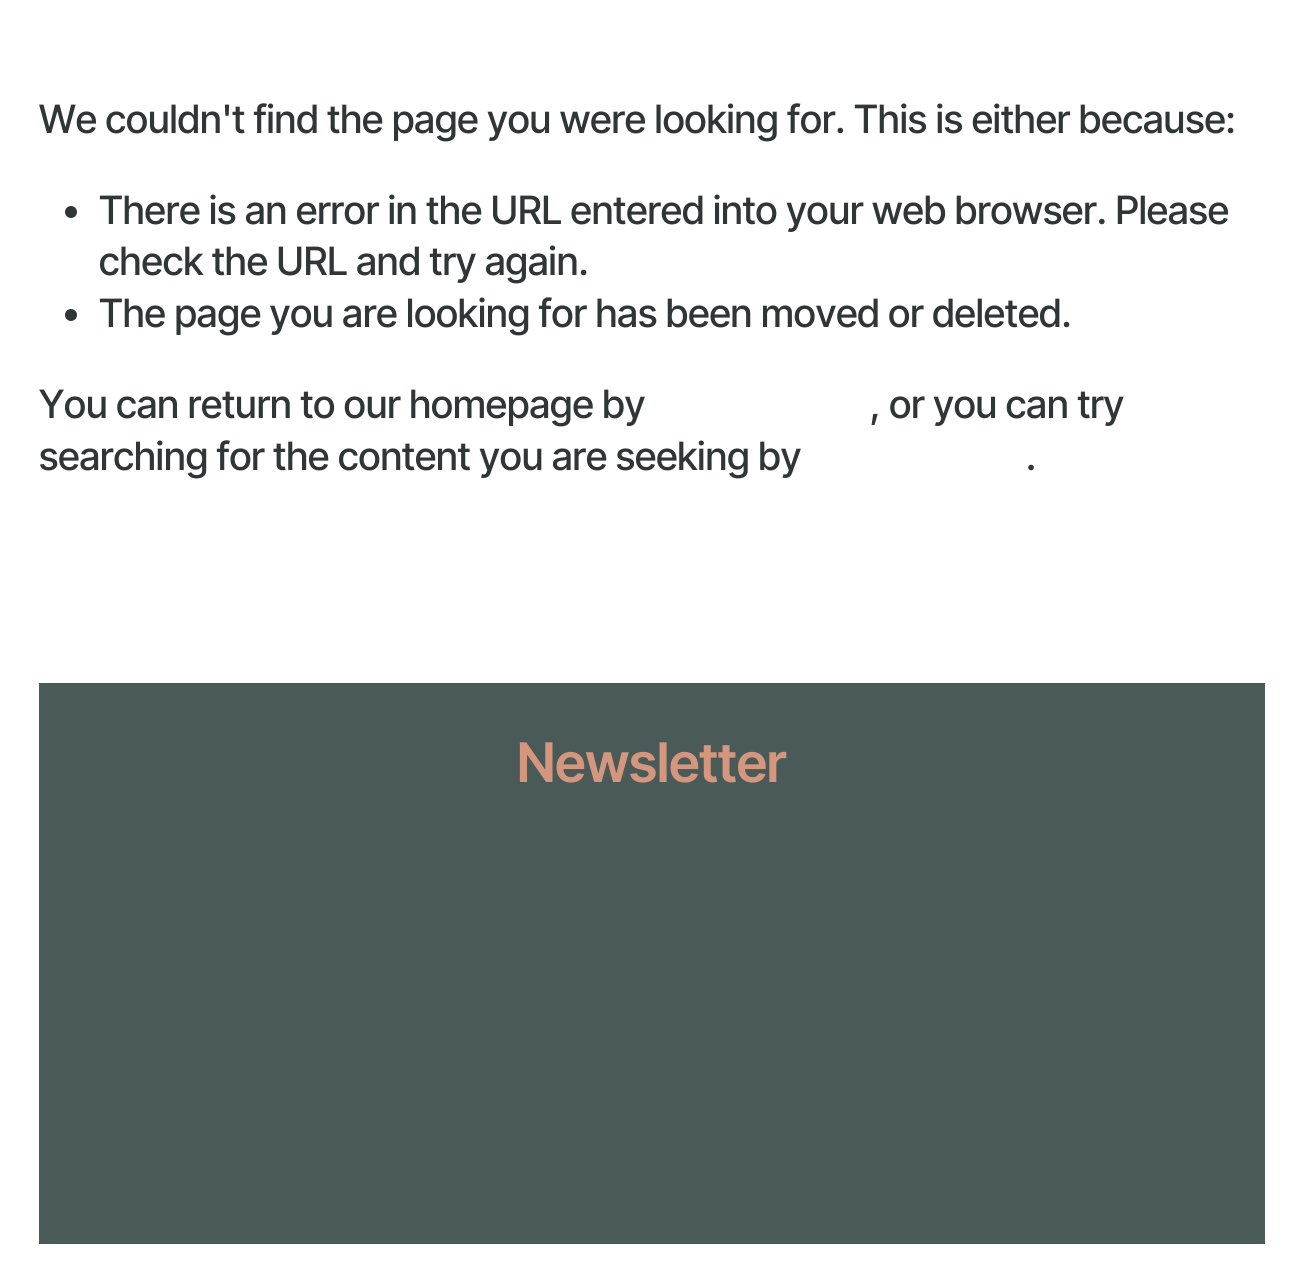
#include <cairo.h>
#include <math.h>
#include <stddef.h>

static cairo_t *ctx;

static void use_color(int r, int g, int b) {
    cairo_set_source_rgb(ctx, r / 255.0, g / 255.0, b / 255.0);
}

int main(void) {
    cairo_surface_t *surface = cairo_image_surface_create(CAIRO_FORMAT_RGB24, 1303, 1282);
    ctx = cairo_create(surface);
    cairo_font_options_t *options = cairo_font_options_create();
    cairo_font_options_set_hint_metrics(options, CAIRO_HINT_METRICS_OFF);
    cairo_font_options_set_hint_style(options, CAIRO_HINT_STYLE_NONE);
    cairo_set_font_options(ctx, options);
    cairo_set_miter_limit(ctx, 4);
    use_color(255, 255, 255);
    cairo_paint(ctx);
    cairo_select_font_face(ctx, "Inter Tight Medium", CAIRO_FONT_SLANT_NORMAL, CAIRO_FONT_WEIGHT_NORMAL);
    cairo_set_font_size(ctx, 39);
    use_color(48, 54, 54);
    cairo_move_to(ctx, 39, 133);
    cairo_show_text(ctx, "We couldn't find the page you were looking for. This is either because:");
    cairo_new_path(ctx);
    cairo_arc(ctx, 71, 212, 6, 0, 2 * M_PI);
    cairo_fill(ctx);
    cairo_move_to(ctx, 99, 224);
    cairo_show_text(ctx, "There is an error in the URL entered into your web browser. Please");
    cairo_move_to(ctx, 99, 275);
    cairo_show_text(ctx, "check the URL and try again.");
    cairo_new_path(ctx);
    cairo_arc(ctx, 71, 315, 6, 0, 2 * M_PI);
    cairo_fill(ctx);
    cairo_move_to(ctx, 99, 327);
    cairo_show_text(ctx, "The page you are looking for has been moved or deleted.");
    cairo_move_to(ctx, 39, 418);
    cairo_show_text(ctx, "You can return to our homepage by");
    cairo_move_to(ctx, 870, 418);
    cairo_show_text(ctx, ", or you can try");
    cairo_move_to(ctx, 39, 470);
    cairo_show_text(ctx, "searching for the content you are seeking by");
    cairo_move_to(ctx, 1026, 470);
    cairo_show_text(ctx, ".");
    use_color(73, 90, 88);
    cairo_rectangle(ctx, 39, 683, 1226, 561);
    cairo_fill(ctx);
    cairo_select_font_face(ctx, "Inter Tight SemiBold", CAIRO_FONT_SLANT_NORMAL, CAIRO_FONT_WEIGHT_NORMAL);
    cairo_set_font_size(ctx, 54.5);
    use_color(212, 150, 125);
    cairo_move_to(ctx, 517, 782);
    cairo_show_text(ctx, "Newsletter");
    cairo_surface_write_to_png(surface, "result.png");
    cairo_font_options_destroy(options);
    cairo_destroy(ctx);
    cairo_surface_destroy(surface);
    return 0;
}
